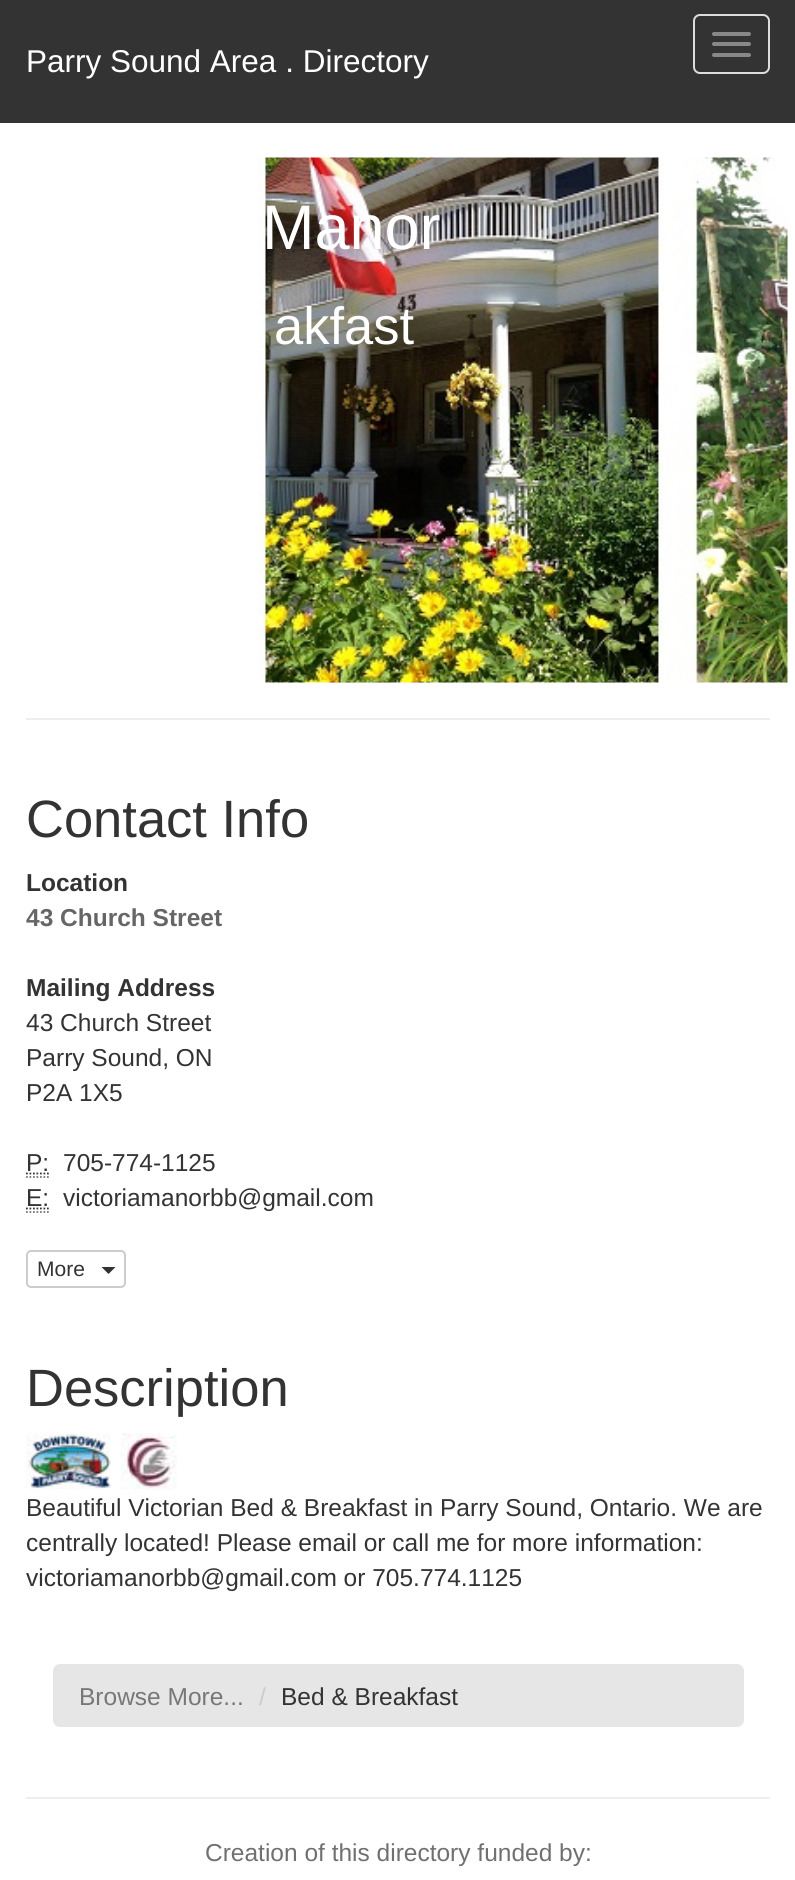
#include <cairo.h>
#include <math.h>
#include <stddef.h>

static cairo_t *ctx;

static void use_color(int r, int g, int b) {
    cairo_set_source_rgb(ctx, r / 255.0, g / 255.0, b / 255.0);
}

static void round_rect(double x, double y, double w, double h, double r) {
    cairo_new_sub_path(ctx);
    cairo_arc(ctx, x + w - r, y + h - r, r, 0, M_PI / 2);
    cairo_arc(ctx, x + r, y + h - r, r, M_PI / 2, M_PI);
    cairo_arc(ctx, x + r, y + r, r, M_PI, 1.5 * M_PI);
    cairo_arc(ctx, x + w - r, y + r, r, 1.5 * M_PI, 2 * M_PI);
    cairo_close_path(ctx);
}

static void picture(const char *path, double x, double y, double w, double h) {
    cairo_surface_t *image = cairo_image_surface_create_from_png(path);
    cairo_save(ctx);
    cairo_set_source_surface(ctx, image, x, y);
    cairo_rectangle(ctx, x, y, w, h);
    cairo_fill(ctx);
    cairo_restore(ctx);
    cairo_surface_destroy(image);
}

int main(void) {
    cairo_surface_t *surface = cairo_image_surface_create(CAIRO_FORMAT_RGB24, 795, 1880);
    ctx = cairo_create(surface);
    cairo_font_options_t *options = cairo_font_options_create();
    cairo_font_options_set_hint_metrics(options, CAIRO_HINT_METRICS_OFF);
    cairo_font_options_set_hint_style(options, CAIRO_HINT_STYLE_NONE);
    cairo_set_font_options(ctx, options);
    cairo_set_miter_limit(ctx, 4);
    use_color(255, 255, 255);
    cairo_paint(ctx);
    use_color(51, 51, 51);
    cairo_rectangle(ctx, 0, 0, 795, 123);
    cairo_fill(ctx);
    cairo_select_font_face(ctx, "Liberation Sans", CAIRO_FONT_SLANT_NORMAL, CAIRO_FONT_WEIGHT_NORMAL);
    cairo_set_font_size(ctx, 31.5);
    use_color(255, 255, 255);
    cairo_move_to(ctx, 26, 72);
    cairo_show_text(ctx, "Parry Sound Area . Directory");
    round_rect(694, 15, 75, 58, 6);
    use_color(221, 221, 221);
    cairo_stroke(ctx);
    use_color(136, 136, 136);
    round_rect(712, 32, 39, 4, 2);
    cairo_fill(ctx);
    round_rect(712, 42, 39, 4, 2);
    cairo_fill(ctx);
    round_rect(712, 53, 39, 4, 2);
    cairo_fill(ctx);
    picture("img1.png", 258, 157, 530, 526);
    cairo_set_font_size(ctx, 63);
    use_color(255, 255, 255);
    cairo_move_to(ctx, 262, 249);
    cairo_show_text(ctx, "Manor");
    cairo_set_font_size(ctx, 52.5);
    cairo_move_to(ctx, 274, 344);
    cairo_show_text(ctx, "akfast");
    use_color(238, 238, 238);
    cairo_rectangle(ctx, 26, 718, 744, 2);
    cairo_fill(ctx);
    use_color(51, 51, 51);
    cairo_move_to(ctx, 26, 837);
    cairo_show_text(ctx, "Contact Info");
    cairo_select_font_face(ctx, "Liberation Sans", CAIRO_FONT_SLANT_NORMAL, CAIRO_FONT_WEIGHT_BOLD);
    cairo_set_font_size(ctx, 24.5);
    cairo_move_to(ctx, 26, 891);
    cairo_show_text(ctx, "Location");
    use_color(102, 102, 102);
    cairo_move_to(ctx, 26, 926);
    cairo_show_text(ctx, "43 Church Street");
    use_color(51, 51, 51);
    cairo_move_to(ctx, 26, 996);
    cairo_show_text(ctx, "Mailing Address");
    cairo_select_font_face(ctx, "Liberation Sans", CAIRO_FONT_SLANT_NORMAL, CAIRO_FONT_WEIGHT_NORMAL);
    cairo_move_to(ctx, 26, 1031);
    cairo_show_text(ctx, "43 Church Street");
    cairo_move_to(ctx, 26, 1066);
    cairo_show_text(ctx, "Parry Sound, ON");
    cairo_move_to(ctx, 26, 1101);
    cairo_show_text(ctx, "P2A 1X5");
    cairo_move_to(ctx, 26, 1171);
    cairo_show_text(ctx, "P:");
    cairo_new_path(ctx);
    cairo_move_to(ctx, 26, 1177);
    cairo_line_to(ctx, 49, 1177);
    use_color(119, 119, 119);
    cairo_set_line_width(ctx, 1.8);
    cairo_set_dash(ctx, (double[]){1.75, 1.75}, 2, 0);
    cairo_stroke(ctx);
    cairo_new_path(ctx);
    cairo_move_to(ctx, 26, 1173.5);
    cairo_line_to(ctx, 49.5, 1173.5);
    use_color(51, 51, 51);
    cairo_stroke(ctx);
    cairo_move_to(ctx, 63, 1171);
    cairo_show_text(ctx, "705-774-1125");
    cairo_move_to(ctx, 26, 1206);
    cairo_show_text(ctx, "E:");
    cairo_new_path(ctx);
    cairo_move_to(ctx, 26, 1212);
    cairo_line_to(ctx, 49, 1212);
    use_color(119, 119, 119);
    cairo_stroke(ctx);
    cairo_new_path(ctx);
    cairo_move_to(ctx, 26, 1208.5);
    cairo_line_to(ctx, 49.5, 1208.5);
    use_color(51, 51, 51);
    cairo_stroke(ctx);
    cairo_move_to(ctx, 63, 1206);
    cairo_show_text(ctx, "victoriamanorbb@gmail.com");
    round_rect(27, 1251, 98, 36, 4);
    use_color(204, 204, 204);
    cairo_set_line_width(ctx, 2);
    cairo_set_dash(ctx, NULL, 0, 0);
    cairo_stroke(ctx);
    cairo_set_font_size(ctx, 21);
    use_color(51, 51, 51);
    cairo_move_to(ctx, 37, 1276);
    cairo_show_text(ctx, "More");
    cairo_new_path(ctx);
    cairo_move_to(ctx, 101.5, 1267);
    cairo_line_to(ctx, 115.5, 1267);
    cairo_line_to(ctx, 108.5, 1274);
    cairo_close_path(ctx);
    cairo_fill(ctx);
    cairo_set_font_size(ctx, 52.5);
    cairo_move_to(ctx, 26, 1406);
    cairo_show_text(ctx, "Description");
    picture("img2.png", 26, 1433, 85, 56);
    picture("img3.png", 120, 1433, 57, 57);
    cairo_set_font_size(ctx, 24.5);
    cairo_move_to(ctx, 26, 1516);
    cairo_show_text(ctx, "Beautiful Victorian Bed & Breakfast in Parry Sound, Ontario. We are");
    cairo_move_to(ctx, 26, 1551);
    cairo_show_text(ctx, "centrally located! Please email or call me for more information:");
    cairo_move_to(ctx, 26, 1586);
    cairo_show_text(ctx, "victoriamanorbb@gmail.com or 705.774.1125");
    use_color(230, 230, 230);
    round_rect(53, 1664, 691, 63, 7);
    cairo_fill(ctx);
    use_color(119, 119, 119);
    cairo_move_to(ctx, 79, 1705);
    cairo_show_text(ctx, "Browse More...");
    use_color(204, 204, 204);
    cairo_move_to(ctx, 259, 1705);
    cairo_show_text(ctx, "/");
    use_color(51, 51, 51);
    cairo_move_to(ctx, 281, 1705);
    cairo_show_text(ctx, "Bed & Breakfast");
    use_color(238, 238, 238);
    cairo_rectangle(ctx, 26, 1797, 744, 2);
    cairo_fill(ctx);
    use_color(112, 112, 112);
    cairo_move_to(ctx, 205, 1861);
    cairo_show_text(ctx, "Creation of this directory funded by:");
    cairo_surface_write_to_png(surface, "result.png");
    cairo_font_options_destroy(options);
    cairo_destroy(ctx);
    cairo_surface_destroy(surface);
    return 0;
}
